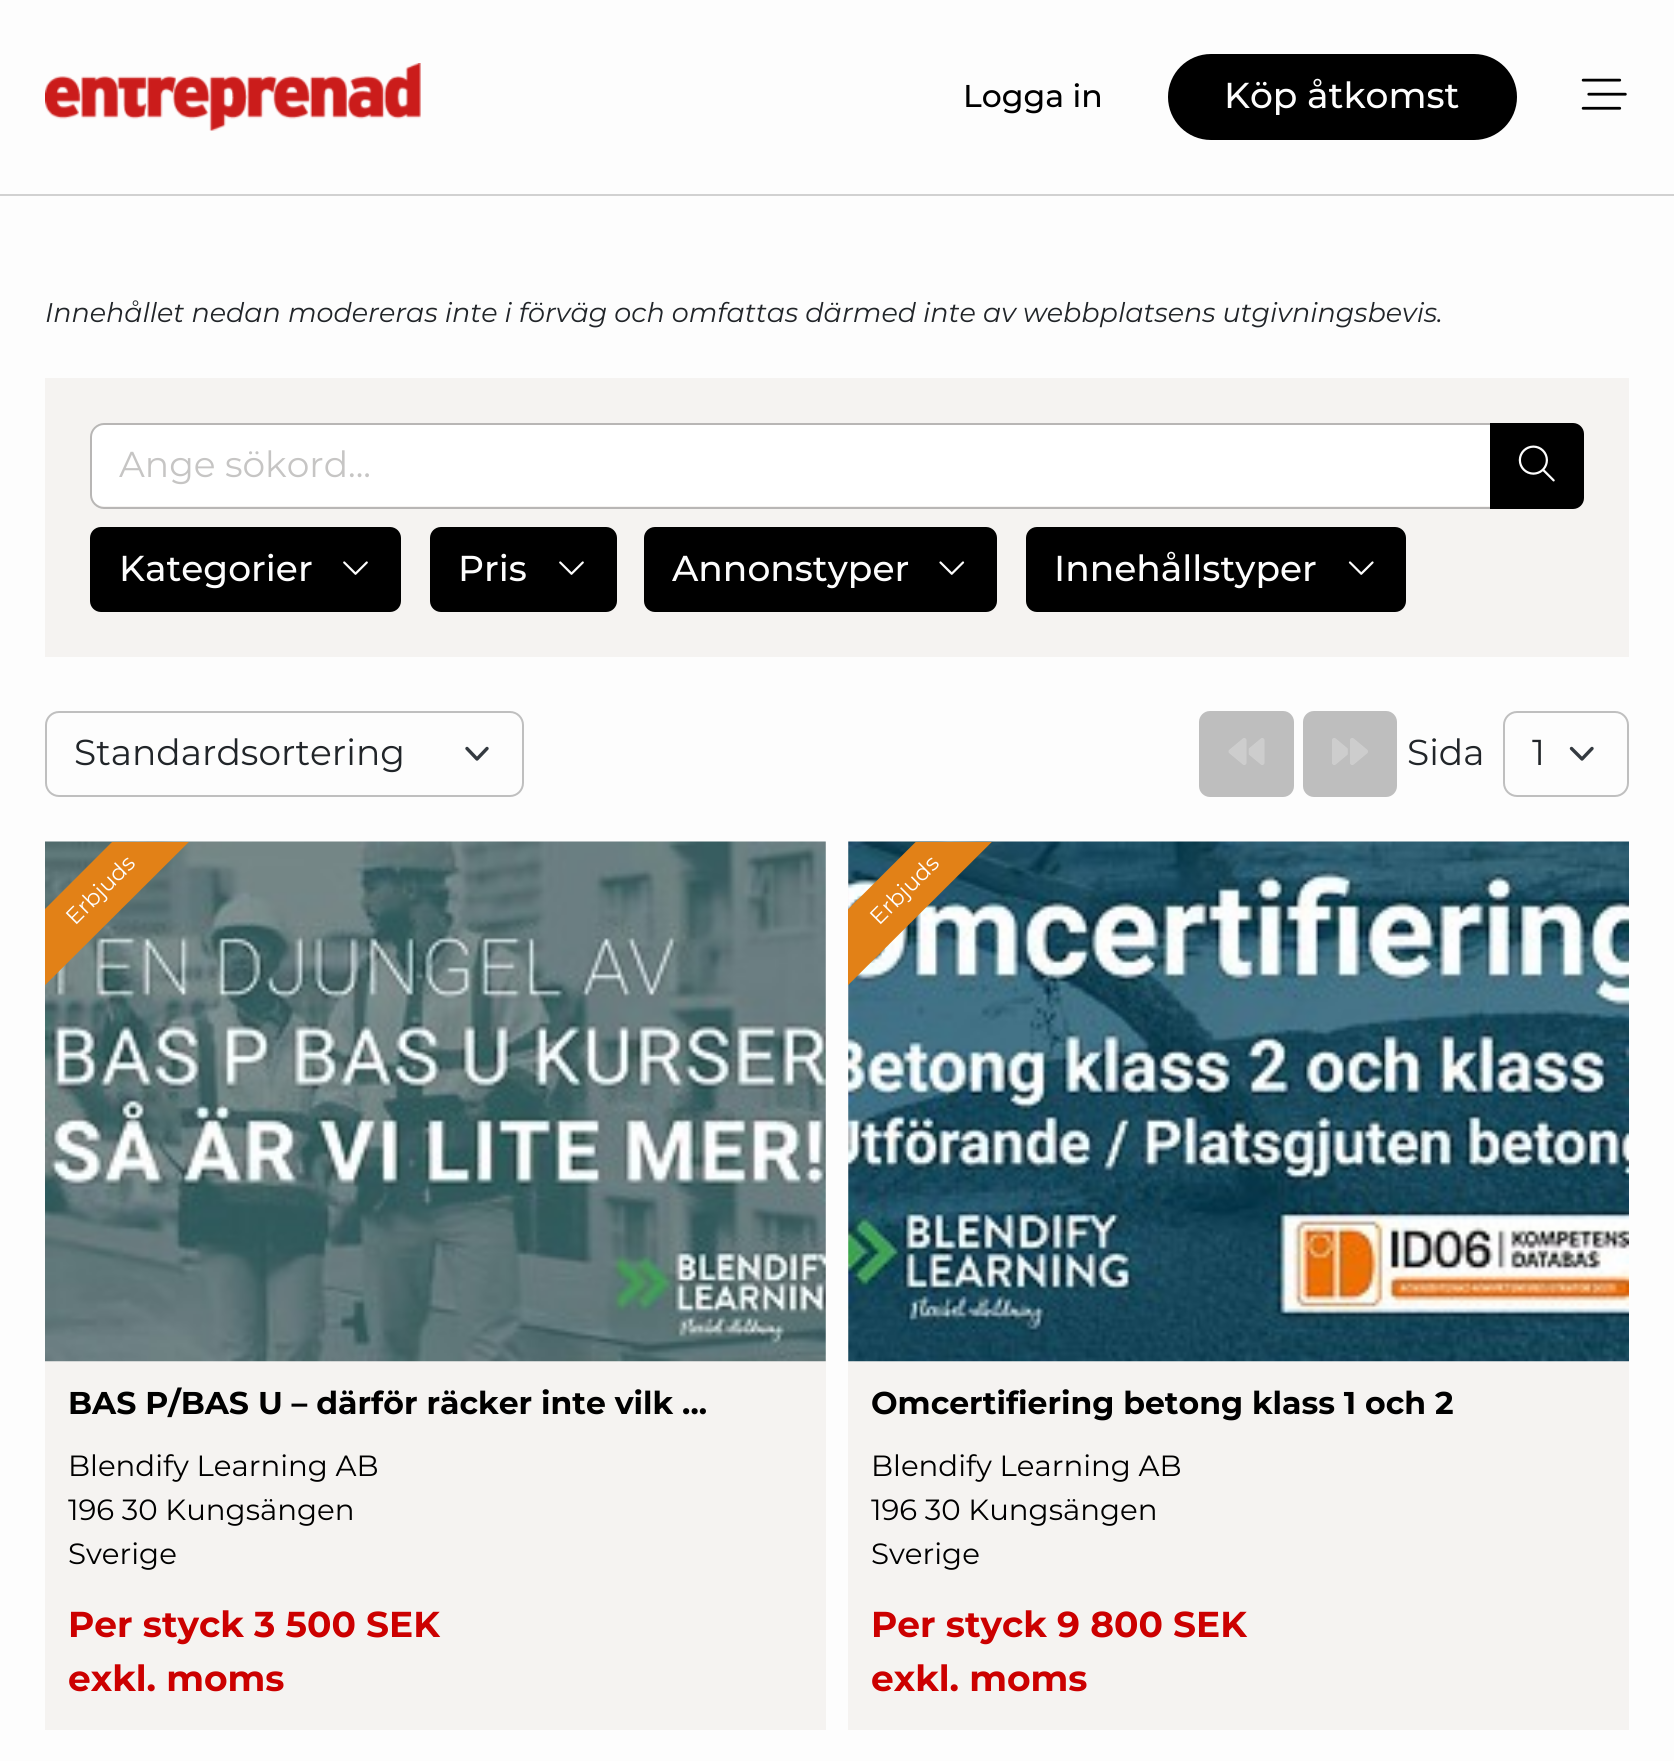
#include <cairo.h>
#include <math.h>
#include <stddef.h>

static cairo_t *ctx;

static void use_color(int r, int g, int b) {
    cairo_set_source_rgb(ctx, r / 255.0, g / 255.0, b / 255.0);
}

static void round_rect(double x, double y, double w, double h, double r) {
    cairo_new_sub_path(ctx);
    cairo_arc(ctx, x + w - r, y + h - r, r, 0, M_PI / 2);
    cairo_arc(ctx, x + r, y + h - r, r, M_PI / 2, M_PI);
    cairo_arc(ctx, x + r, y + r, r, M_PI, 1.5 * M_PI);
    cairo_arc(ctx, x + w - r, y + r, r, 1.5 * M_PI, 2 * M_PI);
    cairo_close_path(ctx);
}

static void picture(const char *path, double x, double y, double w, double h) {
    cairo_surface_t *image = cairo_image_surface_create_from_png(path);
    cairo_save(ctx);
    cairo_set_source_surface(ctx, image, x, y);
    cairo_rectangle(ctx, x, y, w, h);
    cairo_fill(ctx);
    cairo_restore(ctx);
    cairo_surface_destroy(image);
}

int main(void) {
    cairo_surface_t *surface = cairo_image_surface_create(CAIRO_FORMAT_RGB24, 1674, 1761);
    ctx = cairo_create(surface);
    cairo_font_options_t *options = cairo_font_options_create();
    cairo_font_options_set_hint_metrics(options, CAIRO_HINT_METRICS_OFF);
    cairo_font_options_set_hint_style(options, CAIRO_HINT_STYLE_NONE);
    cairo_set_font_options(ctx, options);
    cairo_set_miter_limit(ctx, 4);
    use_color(253, 253, 253);
    cairo_paint(ctx);
    use_color(209, 209, 209);
    cairo_rectangle(ctx, 0, 194, 1674, 2);
    cairo_fill(ctx);
    picture("img1.png", 45, 63, 376, 68);
    cairo_select_font_face(ctx, "Montserrat Medium", CAIRO_FONT_SLANT_NORMAL, CAIRO_FONT_WEIGHT_NORMAL);
    cairo_set_font_size(ctx, 31.5);
    use_color(0, 0, 0);
    cairo_move_to(ctx, 963, 107);
    cairo_show_text(ctx, "Logga in");
    round_rect(1169, 55, 347, 84, 42);
    cairo_fill_preserve(ctx);
    cairo_stroke(ctx);
    cairo_set_font_size(ctx, 36);
    use_color(253, 253, 253);
    cairo_move_to(ctx, 1224, 108);
    cairo_show_text(ctx, "Köp åtkomst");
    picture("img2.png", 1581, 78, 46, 32);
    cairo_select_font_face(ctx, "Montserrat", CAIRO_FONT_SLANT_ITALIC, CAIRO_FONT_WEIGHT_NORMAL);
    cairo_set_font_size(ctx, 27);
    use_color(33, 37, 41);
    cairo_move_to(ctx, 45, 322);
    cairo_show_text(ctx, "Innehållet nedan modereras inte i förväg och omfattas därmed inte av webbplatsens utgivningsbevis.");
    use_color(245, 243, 241);
    cairo_rectangle(ctx, 45, 378, 1584, 279);
    cairo_fill(ctx);
    use_color(255, 255, 255);
    cairo_new_path(ctx);
    cairo_move_to(ctx, 103, 425);
    cairo_line_to(ctx, 1490, 425);
    cairo_line_to(ctx, 1490, 506);
    cairo_line_to(ctx, 103, 506);
    cairo_curve_to(ctx, 97, 506, 92, 501, 92, 495);
    cairo_line_to(ctx, 92, 436);
    cairo_curve_to(ctx, 92, 430, 97, 425, 103, 425);
    cairo_close_path(ctx);
    cairo_fill(ctx);
    cairo_new_path(ctx);
    cairo_move_to(ctx, 104, 424);
    cairo_line_to(ctx, 1491, 424);
    cairo_line_to(ctx, 1491, 508);
    cairo_line_to(ctx, 104, 508);
    cairo_curve_to(ctx, 97, 508, 91, 502, 91, 495);
    cairo_line_to(ctx, 91, 437);
    cairo_curve_to(ctx, 91, 430, 97, 424, 104, 424);
    cairo_close_path(ctx);
    cairo_set_source_rgba(ctx, 0, 0, 0, 0.25);
    cairo_stroke(ctx);
    cairo_select_font_face(ctx, "Montserrat", CAIRO_FONT_SLANT_NORMAL, CAIRO_FONT_WEIGHT_NORMAL);
    cairo_set_font_size(ctx, 36);
    use_color(198, 197, 196);
    cairo_move_to(ctx, 119, 477);
    cairo_show_text(ctx, "Ange sökord...");
    use_color(0, 0, 0);
    cairo_new_path(ctx);
    cairo_move_to(ctx, 1491, 424);
    cairo_line_to(ctx, 1573, 424);
    cairo_curve_to(ctx, 1578.5, 424, 1583, 428.5, 1583, 434);
    cairo_line_to(ctx, 1583, 498);
    cairo_curve_to(ctx, 1583, 503.5, 1578.5, 508, 1573, 508);
    cairo_line_to(ctx, 1491, 508);
    cairo_close_path(ctx);
    cairo_fill_preserve(ctx);
    cairo_stroke(ctx);
    picture("img3.png", 1518, 445, 37, 37);
    round_rect(91, 528, 309, 83, 10);
    cairo_fill_preserve(ctx);
    cairo_stroke(ctx);
    cairo_select_font_face(ctx, "Montserrat Medium", CAIRO_FONT_SLANT_NORMAL, CAIRO_FONT_WEIGHT_NORMAL);
    use_color(253, 253, 253);
    cairo_move_to(ctx, 119, 581);
    cairo_show_text(ctx, "Kategorier");
    picture("img4.png", 343, 561, 25, 14);
    use_color(0, 0, 0);
    round_rect(431, 528, 185, 83, 10);
    cairo_fill_preserve(ctx);
    cairo_stroke(ctx);
    use_color(253, 253, 253);
    cairo_move_to(ctx, 458, 581);
    cairo_show_text(ctx, "Pris");
    picture("img4.png", 559, 561, 25, 14);
    use_color(0, 0, 0);
    round_rect(645, 528, 351, 83, 10);
    cairo_fill_preserve(ctx);
    cairo_stroke(ctx);
    use_color(253, 253, 253);
    cairo_move_to(ctx, 672, 581);
    cairo_show_text(ctx, "Annonstyper");
    picture("img5.png", 939, 561, 26, 14);
    use_color(0, 0, 0);
    round_rect(1027, 528, 378, 83, 10);
    cairo_fill_preserve(ctx);
    cairo_stroke(ctx);
    use_color(253, 253, 253);
    cairo_move_to(ctx, 1054, 581);
    cairo_show_text(ctx, "Innehållstyper");
    picture("img6.png", 1348, 561, 26, 14);
    cairo_new_path(ctx);
    cairo_move_to(ctx, 467, 748.5);
    cairo_line_to(ctx, 477, 759);
    cairo_line_to(ctx, 487, 748.5);
    use_color(52, 58, 64);
    cairo_set_line_width(ctx, 3.4);
    cairo_set_line_cap(ctx, CAIRO_LINE_CAP_ROUND);
    cairo_set_line_join(ctx, CAIRO_LINE_JOIN_ROUND);
    cairo_stroke(ctx);
    round_rect(46, 712, 477, 84, 13);
    use_color(191, 191, 191);
    cairo_set_line_width(ctx, 2);
    cairo_set_line_cap(ctx, CAIRO_LINE_CAP_BUTT);
    cairo_set_line_join(ctx, CAIRO_LINE_JOIN_MITER);
    cairo_stroke(ctx);
    cairo_select_font_face(ctx, "Montserrat", CAIRO_FONT_SLANT_NORMAL, CAIRO_FONT_WEIGHT_NORMAL);
    use_color(33, 37, 41);
    cairo_move_to(ctx, 74, 765);
    cairo_show_text(ctx, "Standardsortering");
    use_color(190, 190, 190);
    round_rect(1200, 712, 93, 84, 10);
    cairo_fill_preserve(ctx);
    cairo_stroke(ctx);
    picture("img7.png", 1228, 738, 37, 27);
    round_rect(1304, 712, 92, 84, 10);
    cairo_fill_preserve(ctx);
    cairo_stroke(ctx);
    picture("img8.png", 1332, 738, 36, 27);
    use_color(33, 37, 41);
    cairo_move_to(ctx, 1407, 765);
    cairo_show_text(ctx, "Sida");
    cairo_new_path(ctx);
    cairo_move_to(ctx, 1571.5, 748.5);
    cairo_line_to(ctx, 1582, 759);
    cairo_line_to(ctx, 1592, 748.5);
    use_color(52, 58, 64);
    cairo_set_line_width(ctx, 3.4);
    cairo_set_line_cap(ctx, CAIRO_LINE_CAP_ROUND);
    cairo_set_line_join(ctx, CAIRO_LINE_JOIN_ROUND);
    cairo_stroke(ctx);
    round_rect(1504, 712, 124, 84, 13);
    use_color(191, 191, 191);
    cairo_set_line_width(ctx, 2);
    cairo_set_line_cap(ctx, CAIRO_LINE_CAP_BUTT);
    cairo_set_line_join(ctx, CAIRO_LINE_JOIN_MITER);
    cairo_stroke(ctx);
    use_color(33, 37, 41);
    cairo_move_to(ctx, 1532, 765);
    cairo_show_text(ctx, "1");
    use_color(245, 243, 241);
    cairo_rectangle(ctx, 45, 842, 781, 888);
    cairo_fill(ctx);
    picture("img9.png", 45, 841, 781, 521);
    cairo_save(ctx);
    cairo_rectangle(ctx, 45, 842, 338, 337);
    cairo_clip(ctx);
    use_color(226, 129, 23);
    cairo_new_path(ctx);
    cairo_move_to(ctx, -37, 991);
    cairo_line_to(ctx, 201, 753);
    cairo_line_to(ctx, 240, 791);
    cairo_line_to(ctx, 1, 1029);
    cairo_close_path(ctx);
    cairo_fill(ctx);
    cairo_restore(ctx);
    cairo_set_font_size(ctx, 22.5);
    use_color(253, 253, 253);
    cairo_save(ctx);
    cairo_translate(ctx, 75, 926);
    cairo_rotate(ctx, -45 * M_PI / 180);
    cairo_move_to(ctx, 0, 0);
    cairo_show_text(ctx, "Erbjuds");
    cairo_restore(ctx);
    cairo_select_font_face(ctx, "Montserrat", CAIRO_FONT_SLANT_NORMAL, CAIRO_FONT_WEIGHT_BOLD);
    cairo_set_font_size(ctx, 31.5);
    use_color(0, 0, 0);
    cairo_move_to(ctx, 68, 1414);
    cairo_show_text(ctx, "BAS P/BAS U – därför räcker inte vilk ...");
    cairo_select_font_face(ctx, "Montserrat", CAIRO_FONT_SLANT_NORMAL, CAIRO_FONT_WEIGHT_NORMAL);
    cairo_set_font_size(ctx, 29.25);
    cairo_move_to(ctx, 68, 1476);
    cairo_show_text(ctx, "Blendify Learning AB");
    cairo_move_to(ctx, 68, 1520);
    cairo_show_text(ctx, "196 30 Kungsängen");
    cairo_move_to(ctx, 68, 1564);
    cairo_show_text(ctx, "Sverige");
    cairo_select_font_face(ctx, "Montserrat", CAIRO_FONT_SLANT_NORMAL, CAIRO_FONT_WEIGHT_BOLD);
    cairo_set_font_size(ctx, 36);
    use_color(204, 0, 0);
    cairo_move_to(ctx, 68, 1637);
    cairo_show_text(ctx, "Per styck 3 500 SEK");
    cairo_move_to(ctx, 68, 1691);
    cairo_show_text(ctx, "exkl. moms");
    use_color(245, 243, 241);
    cairo_rectangle(ctx, 848, 842, 781, 888);
    cairo_fill(ctx);
    picture("img10.png", 848, 841, 781, 521);
    cairo_save(ctx);
    cairo_rectangle(ctx, 848, 842, 338, 337);
    cairo_clip(ctx);
    use_color(226, 129, 23);
    cairo_new_path(ctx);
    cairo_move_to(ctx, 766, 991);
    cairo_line_to(ctx, 1005, 753);
    cairo_line_to(ctx, 1043, 791);
    cairo_line_to(ctx, 804, 1029);
    cairo_close_path(ctx);
    cairo_fill(ctx);
    cairo_restore(ctx);
    cairo_select_font_face(ctx, "Montserrat", CAIRO_FONT_SLANT_NORMAL, CAIRO_FONT_WEIGHT_NORMAL);
    cairo_set_font_size(ctx, 22.5);
    use_color(253, 253, 253);
    cairo_save(ctx);
    cairo_translate(ctx, 879, 926);
    cairo_rotate(ctx, -45 * M_PI / 180);
    cairo_move_to(ctx, 0, 0);
    cairo_show_text(ctx, "Erbjuds");
    cairo_restore(ctx);
    cairo_select_font_face(ctx, "Montserrat", CAIRO_FONT_SLANT_NORMAL, CAIRO_FONT_WEIGHT_BOLD);
    cairo_set_font_size(ctx, 31.5);
    use_color(0, 0, 0);
    cairo_move_to(ctx, 871, 1414);
    cairo_show_text(ctx, "Omcertifiering betong klass 1 och 2");
    cairo_select_font_face(ctx, "Montserrat", CAIRO_FONT_SLANT_NORMAL, CAIRO_FONT_WEIGHT_NORMAL);
    cairo_set_font_size(ctx, 29.25);
    cairo_move_to(ctx, 871, 1476);
    cairo_show_text(ctx, "Blendify Learning AB");
    cairo_move_to(ctx, 871, 1520);
    cairo_show_text(ctx, "196 30 Kungsängen");
    cairo_move_to(ctx, 871, 1564);
    cairo_show_text(ctx, "Sverige");
    cairo_select_font_face(ctx, "Montserrat", CAIRO_FONT_SLANT_NORMAL, CAIRO_FONT_WEIGHT_BOLD);
    cairo_set_font_size(ctx, 36);
    use_color(204, 0, 0);
    cairo_move_to(ctx, 871, 1637);
    cairo_show_text(ctx, "Per styck 9 800 SEK");
    cairo_move_to(ctx, 871, 1691);
    cairo_show_text(ctx, "exkl. moms");
    cairo_surface_write_to_png(surface, "result.png");
    cairo_font_options_destroy(options);
    cairo_destroy(ctx);
    cairo_surface_destroy(surface);
    return 0;
}
